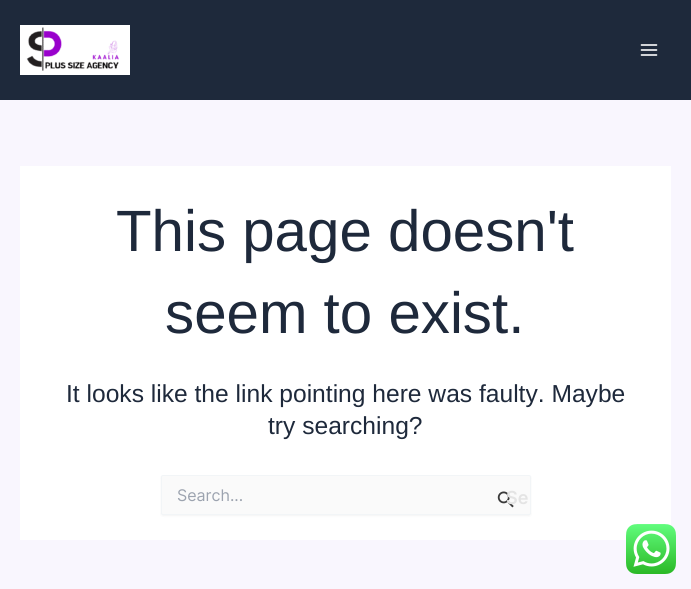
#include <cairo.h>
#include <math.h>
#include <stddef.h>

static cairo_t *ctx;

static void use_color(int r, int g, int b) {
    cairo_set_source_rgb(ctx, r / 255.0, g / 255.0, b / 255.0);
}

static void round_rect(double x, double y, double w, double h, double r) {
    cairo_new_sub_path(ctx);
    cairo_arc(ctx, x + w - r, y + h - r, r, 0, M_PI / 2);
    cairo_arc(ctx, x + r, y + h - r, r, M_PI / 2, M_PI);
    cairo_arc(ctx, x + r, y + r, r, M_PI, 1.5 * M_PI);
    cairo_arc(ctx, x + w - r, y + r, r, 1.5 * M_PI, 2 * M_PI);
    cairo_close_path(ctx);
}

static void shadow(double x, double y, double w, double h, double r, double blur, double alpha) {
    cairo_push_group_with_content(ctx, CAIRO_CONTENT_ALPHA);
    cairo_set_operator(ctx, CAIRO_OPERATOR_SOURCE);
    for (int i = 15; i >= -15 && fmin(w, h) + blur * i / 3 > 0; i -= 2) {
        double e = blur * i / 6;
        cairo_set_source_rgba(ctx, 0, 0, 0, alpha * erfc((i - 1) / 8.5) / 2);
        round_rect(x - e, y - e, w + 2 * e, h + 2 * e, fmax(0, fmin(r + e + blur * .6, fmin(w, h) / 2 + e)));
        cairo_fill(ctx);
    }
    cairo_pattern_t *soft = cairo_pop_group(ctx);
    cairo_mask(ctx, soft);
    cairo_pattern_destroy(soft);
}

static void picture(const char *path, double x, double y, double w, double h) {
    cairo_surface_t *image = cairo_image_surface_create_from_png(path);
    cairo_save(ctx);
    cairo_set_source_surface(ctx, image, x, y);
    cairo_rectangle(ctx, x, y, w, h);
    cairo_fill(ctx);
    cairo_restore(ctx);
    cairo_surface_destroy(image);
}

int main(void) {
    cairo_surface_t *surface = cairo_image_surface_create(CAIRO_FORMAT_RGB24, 691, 589);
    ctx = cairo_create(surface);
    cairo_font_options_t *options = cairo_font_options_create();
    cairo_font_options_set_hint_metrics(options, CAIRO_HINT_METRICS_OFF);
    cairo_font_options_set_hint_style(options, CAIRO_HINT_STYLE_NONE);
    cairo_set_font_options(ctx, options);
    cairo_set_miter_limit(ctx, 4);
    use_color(249, 246, 254);
    cairo_paint(ctx);
    use_color(30, 41, 59);
    cairo_rectangle(ctx, 0, 0, 691, 100);
    cairo_fill(ctx);
    picture("img1.png", 20, 25, 110, 50);
    picture("img2.png", 640, 44, 18, 12);
    use_color(255, 255, 255);
    cairo_rectangle(ctx, 20, 166, 651, 374);
    cairo_fill(ctx);
    cairo_select_font_face(ctx, "Liberation Sans", CAIRO_FONT_SLANT_NORMAL, CAIRO_FONT_WEIGHT_NORMAL);
    cairo_set_font_size(ctx, 58.25);
    use_color(30, 41, 59);
    cairo_move_to(ctx, 116, 251);
    cairo_show_text(ctx, "This page doesn't");
    cairo_move_to(ctx, 165, 333);
    cairo_show_text(ctx, "seem to exist.");
    cairo_set_font_size(ctx, 24.6);
    cairo_move_to(ctx, 66, 402);
    cairo_show_text(ctx, "It looks like the link pointing here was faulty. Maybe");
    cairo_move_to(ctx, 268, 434);
    cairo_show_text(ctx, "try searching?");
    use_color(0, 0, 0);
    shadow(161, 476, 370, 40, 2, 1, 0.05);
    use_color(250, 250, 250);
    round_rect(161.5, 475.5, 369, 39, 1.5);
    cairo_fill_preserve(ctx);
    use_color(242, 245, 247);
    cairo_set_line_width(ctx, 1);
    cairo_stroke(ctx);
    cairo_select_font_face(ctx, "Inter", CAIRO_FONT_SLANT_NORMAL, CAIRO_FONT_WEIGHT_NORMAL);
    cairo_set_font_size(ctx, 16);
    use_color(156, 163, 175);
    cairo_move_to(ctx, 177, 501);
    cairo_show_text(ctx, "Search...");
    picture("img3.png", 497, 491, 17, 17);
    cairo_select_font_face(ctx, "Inter SemiBold", CAIRO_FONT_SLANT_NORMAL, CAIRO_FONT_WEIGHT_NORMAL);
    cairo_set_font_size(ctx, 18);
    use_color(228, 228, 228);
    cairo_move_to(ctx, 506, 504);
    cairo_show_text(ctx, "Se");
    picture("img4.png", 626, 524, 50, 50);
    cairo_surface_write_to_png(surface, "result.png");
    cairo_font_options_destroy(options);
    cairo_destroy(ctx);
    cairo_surface_destroy(surface);
    return 0;
}
